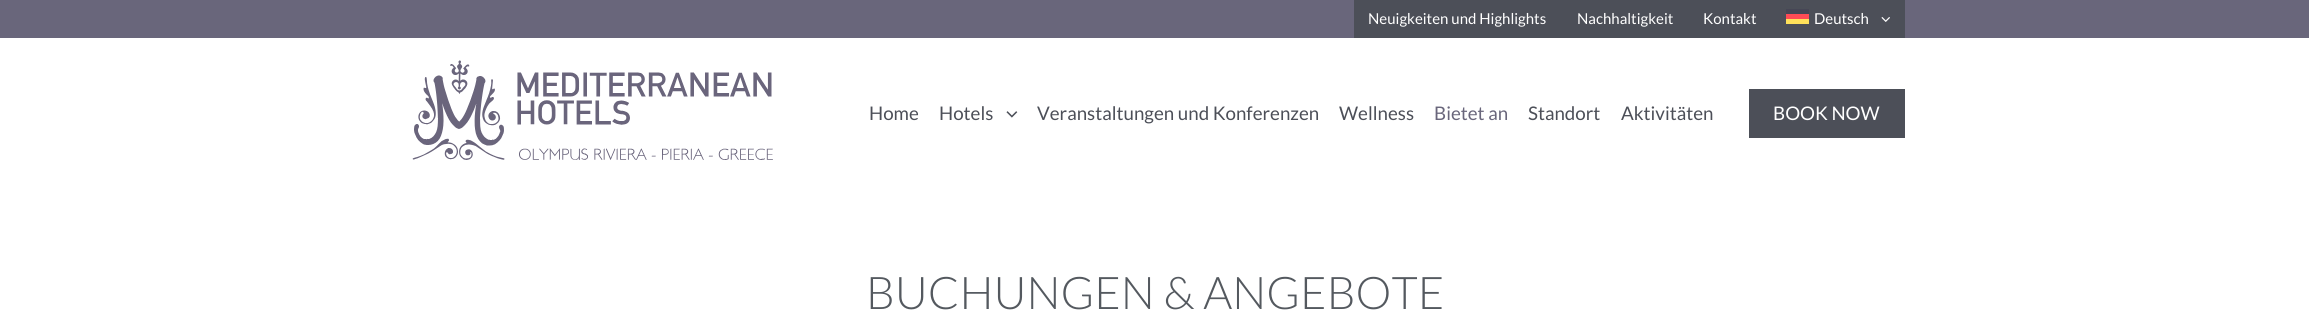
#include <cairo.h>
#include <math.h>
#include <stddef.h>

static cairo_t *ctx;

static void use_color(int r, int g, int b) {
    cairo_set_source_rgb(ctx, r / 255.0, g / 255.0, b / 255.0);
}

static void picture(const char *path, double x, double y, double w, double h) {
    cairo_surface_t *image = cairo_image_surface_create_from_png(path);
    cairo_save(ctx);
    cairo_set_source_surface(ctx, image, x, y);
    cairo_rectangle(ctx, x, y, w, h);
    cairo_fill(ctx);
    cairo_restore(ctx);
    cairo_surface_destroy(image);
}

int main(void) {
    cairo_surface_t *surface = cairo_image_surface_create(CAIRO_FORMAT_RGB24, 2309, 325);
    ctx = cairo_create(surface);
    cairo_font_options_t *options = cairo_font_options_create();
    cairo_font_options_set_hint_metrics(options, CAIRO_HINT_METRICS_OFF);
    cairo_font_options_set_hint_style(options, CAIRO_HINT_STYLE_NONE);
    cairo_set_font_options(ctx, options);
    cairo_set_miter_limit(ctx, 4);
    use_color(255, 255, 255);
    cairo_paint(ctx);
    use_color(105, 102, 123);
    cairo_rectangle(ctx, 0, 0, 2309, 38);
    cairo_fill(ctx);
    use_color(76, 79, 88);
    cairo_rectangle(ctx, 1354, 0, 551, 38);
    cairo_fill(ctx);
    cairo_select_font_face(ctx, "Lato", CAIRO_FONT_SLANT_NORMAL, CAIRO_FONT_WEIGHT_NORMAL);
    cairo_set_font_size(ctx, 15);
    use_color(255, 255, 255);
    cairo_move_to(ctx, 1368, 24);
    cairo_show_text(ctx, "Neuigkeiten und Highlights");
    cairo_move_to(ctx, 1577, 24);
    cairo_show_text(ctx, "Nachhaltigkeit");
    cairo_move_to(ctx, 1703, 24);
    cairo_show_text(ctx, "Kontakt");
    use_color(70, 70, 85);
    cairo_rectangle(ctx, 1786, 9, 23, 5);
    cairo_fill(ctx);
    use_color(255, 75, 85);
    cairo_rectangle(ctx, 1786, 14, 23, 5);
    cairo_fill(ctx);
    use_color(255, 255, 255);
    cairo_move_to(ctx, 1814, 24);
    cairo_show_text(ctx, "Deutsch");
    use_color(255, 225, 90);
    cairo_rectangle(ctx, 1786, 19, 23, 5);
    cairo_fill(ctx);
    picture("img1.png", 1881, 17, 9, 5);
    picture("img2.png", 412, 60, 361, 100);
    cairo_set_font_size(ctx, 18.75);
    use_color(76, 79, 88);
    cairo_move_to(ctx, 869, 120);
    cairo_show_text(ctx, "Home");
    cairo_move_to(ctx, 939, 120);
    cairo_show_text(ctx, "Hotels");
    picture("img3.png", 1006, 111, 12, 7);
    cairo_move_to(ctx, 1037, 120);
    cairo_show_text(ctx, "Veranstaltungen und Konferenzen");
    cairo_move_to(ctx, 1339, 120);
    cairo_show_text(ctx, "Wellness");
    use_color(105, 102, 123);
    cairo_move_to(ctx, 1434, 120);
    cairo_show_text(ctx, "Bietet an");
    use_color(76, 79, 88);
    cairo_move_to(ctx, 1528, 120);
    cairo_show_text(ctx, "Standort");
    cairo_move_to(ctx, 1621, 120);
    cairo_show_text(ctx, "Aktivitäten");
    cairo_rectangle(ctx, 1749, 89, 156, 49);
    cairo_fill(ctx);
    use_color(255, 255, 255);
    cairo_move_to(ctx, 1773, 120);
    cairo_show_text(ctx, "BOOK NOW");
    cairo_select_font_face(ctx, "Lato Light", CAIRO_FONT_SLANT_NORMAL, CAIRO_FONT_WEIGHT_NORMAL);
    cairo_set_font_size(ctx, 45);
    use_color(84, 89, 95);
    cairo_move_to(ctx, 866, 309);
    cairo_show_text(ctx, "BUCHUNGEN & ANGEBOTE");
    cairo_surface_write_to_png(surface, "result.png");
    cairo_font_options_destroy(options);
    cairo_destroy(ctx);
    cairo_surface_destroy(surface);
    return 0;
}
